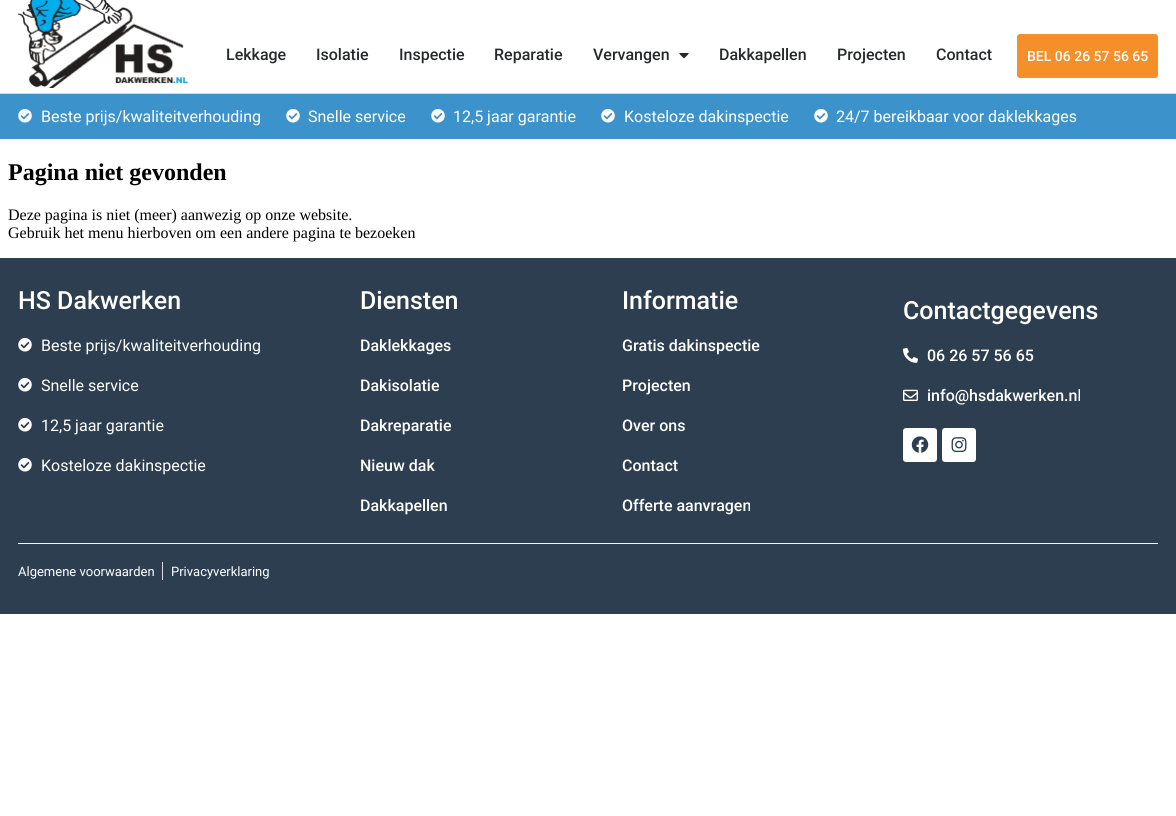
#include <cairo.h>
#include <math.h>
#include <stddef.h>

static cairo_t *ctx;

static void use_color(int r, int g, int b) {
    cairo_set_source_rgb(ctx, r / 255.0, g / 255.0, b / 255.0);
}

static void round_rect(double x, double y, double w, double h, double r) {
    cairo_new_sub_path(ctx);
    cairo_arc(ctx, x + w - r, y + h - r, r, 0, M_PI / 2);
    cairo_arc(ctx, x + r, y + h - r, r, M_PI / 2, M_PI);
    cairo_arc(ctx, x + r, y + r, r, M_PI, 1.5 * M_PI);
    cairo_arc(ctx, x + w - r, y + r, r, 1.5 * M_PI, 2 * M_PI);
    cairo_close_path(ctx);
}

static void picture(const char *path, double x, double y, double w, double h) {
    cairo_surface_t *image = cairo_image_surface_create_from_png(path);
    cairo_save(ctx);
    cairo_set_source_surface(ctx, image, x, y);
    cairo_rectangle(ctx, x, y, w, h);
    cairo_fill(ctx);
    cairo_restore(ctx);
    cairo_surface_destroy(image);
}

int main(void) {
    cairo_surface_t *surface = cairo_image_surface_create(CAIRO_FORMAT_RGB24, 1176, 816);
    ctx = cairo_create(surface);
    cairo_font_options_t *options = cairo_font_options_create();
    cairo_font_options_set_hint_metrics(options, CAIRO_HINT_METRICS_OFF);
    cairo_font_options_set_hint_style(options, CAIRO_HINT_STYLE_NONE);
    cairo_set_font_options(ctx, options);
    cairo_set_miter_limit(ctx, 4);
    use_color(255, 255, 255);
    cairo_paint(ctx);
    use_color(216, 216, 216);
    cairo_rectangle(ctx, 0, 93, 1176, 1);
    cairo_fill(ctx);
    picture("img1.png", 18, 0, 171, 88);
    cairo_select_font_face(ctx, "Roboto Medium", CAIRO_FONT_SLANT_NORMAL, CAIRO_FONT_WEIGHT_NORMAL);
    cairo_set_font_size(ctx, 16);
    use_color(38, 42, 43);
    cairo_move_to(ctx, 226, 60);
    cairo_show_text(ctx, "Lekkage");
    cairo_move_to(ctx, 316, 60);
    cairo_show_text(ctx, "Isolatie");
    cairo_move_to(ctx, 399, 60);
    cairo_show_text(ctx, "Inspectie");
    cairo_move_to(ctx, 494, 60);
    cairo_show_text(ctx, "Reparatie");
    cairo_move_to(ctx, 593, 60);
    cairo_show_text(ctx, "Vervangen");
    picture("img2.png", 679, 53, 10, 6);
    cairo_move_to(ctx, 719, 60);
    cairo_show_text(ctx, "Dakkapellen");
    cairo_move_to(ctx, 837, 60);
    cairo_show_text(ctx, "Projecten");
    cairo_move_to(ctx, 936, 60);
    cairo_show_text(ctx, "Contact");
    use_color(245, 143, 41);
    round_rect(1017, 34, 141, 44, 3);
    cairo_fill(ctx);
    cairo_set_font_size(ctx, 14);
    use_color(255, 255, 255);
    cairo_move_to(ctx, 1027, 61);
    cairo_show_text(ctx, "BEL 06 26 57 56 65");
    use_color(60, 146, 202);
    cairo_rectangle(ctx, 0, 94, 1176, 45);
    cairo_fill(ctx);
    picture("img3.png", 18, 109, 14, 14);
    cairo_select_font_face(ctx, "Roboto", CAIRO_FONT_SLANT_NORMAL, CAIRO_FONT_WEIGHT_NORMAL);
    cairo_set_font_size(ctx, 16);
    use_color(255, 255, 255);
    cairo_move_to(ctx, 41, 122);
    cairo_show_text(ctx, "Beste prijs/kwaliteitverhouding");
    picture("img3.png", 286, 109, 14, 14);
    cairo_move_to(ctx, 308, 122);
    cairo_show_text(ctx, "Snelle service");
    picture("img3.png", 431, 109, 14, 14);
    cairo_move_to(ctx, 453, 122);
    cairo_show_text(ctx, "12,5 jaar garantie");
    picture("img3.png", 601, 109, 14, 14);
    cairo_move_to(ctx, 624, 122);
    cairo_show_text(ctx, "Kosteloze dakinspectie");
    picture("img3.png", 814, 109, 14, 14);
    cairo_move_to(ctx, 836, 122);
    cairo_show_text(ctx, "24/7 bereikbaar voor daklekkages");
    cairo_select_font_face(ctx, "Liberation Serif", CAIRO_FONT_SLANT_NORMAL, CAIRO_FONT_WEIGHT_BOLD);
    cairo_set_font_size(ctx, 24);
    use_color(0, 0, 0);
    cairo_move_to(ctx, 8, 180);
    cairo_show_text(ctx, "Pagina niet gevonden");
    cairo_select_font_face(ctx, "Liberation Serif", CAIRO_FONT_SLANT_NORMAL, CAIRO_FONT_WEIGHT_NORMAL);
    cairo_set_font_size(ctx, 16);
    cairo_move_to(ctx, 8, 220);
    cairo_show_text(ctx, "Deze pagina is niet (meer) aanwezig op onze website.");
    cairo_move_to(ctx, 8, 238);
    cairo_show_text(ctx, "Gebruik het menu hierboven om een andere pagina te bezoeken");
    use_color(44, 62, 80);
    cairo_rectangle(ctx, 0, 258, 1176, 356);
    cairo_fill(ctx);
    cairo_select_font_face(ctx, "Roboto Medium", CAIRO_FONT_SLANT_NORMAL, CAIRO_FONT_WEIGHT_NORMAL);
    cairo_set_font_size(ctx, 25);
    use_color(255, 255, 255);
    cairo_move_to(ctx, 18, 309);
    cairo_show_text(ctx, "HS Dakwerken");
    picture("img4.png", 18, 338, 14, 14);
    cairo_select_font_face(ctx, "Roboto", CAIRO_FONT_SLANT_NORMAL, CAIRO_FONT_WEIGHT_NORMAL);
    cairo_set_font_size(ctx, 16);
    cairo_move_to(ctx, 41, 351);
    cairo_show_text(ctx, "Beste prijs/kwaliteitverhouding");
    picture("img4.png", 18, 378, 14, 14);
    cairo_move_to(ctx, 41, 391);
    cairo_show_text(ctx, "Snelle service");
    picture("img4.png", 18, 418, 14, 14);
    cairo_move_to(ctx, 41, 431);
    cairo_show_text(ctx, "12,5 jaar garantie");
    picture("img4.png", 18, 458, 14, 14);
    cairo_move_to(ctx, 41, 471);
    cairo_show_text(ctx, "Kosteloze dakinspectie");
    cairo_select_font_face(ctx, "Roboto Medium", CAIRO_FONT_SLANT_NORMAL, CAIRO_FONT_WEIGHT_NORMAL);
    cairo_set_font_size(ctx, 25);
    cairo_move_to(ctx, 360, 309);
    cairo_show_text(ctx, "Diensten");
    cairo_set_font_size(ctx, 16);
    cairo_move_to(ctx, 360, 351);
    cairo_show_text(ctx, "Daklekkages");
    cairo_move_to(ctx, 360, 391);
    cairo_show_text(ctx, "Dakisolatie");
    cairo_move_to(ctx, 360, 431);
    cairo_show_text(ctx, "Dakreparatie");
    cairo_move_to(ctx, 360, 471);
    cairo_show_text(ctx, "Nieuw dak");
    cairo_move_to(ctx, 360, 511);
    cairo_show_text(ctx, "Dakkapellen");
    cairo_set_font_size(ctx, 25);
    cairo_move_to(ctx, 622, 309);
    cairo_show_text(ctx, "Informatie");
    cairo_set_font_size(ctx, 16);
    cairo_move_to(ctx, 622, 351);
    cairo_show_text(ctx, "Gratis dakinspectie");
    cairo_move_to(ctx, 622, 391);
    cairo_show_text(ctx, "Projecten");
    cairo_move_to(ctx, 622, 431);
    cairo_show_text(ctx, "Over ons");
    cairo_move_to(ctx, 622, 471);
    cairo_show_text(ctx, "Contact");
    cairo_move_to(ctx, 622, 511);
    cairo_show_text(ctx, "Offerte aanvragen");
    cairo_set_font_size(ctx, 25);
    cairo_move_to(ctx, 903, 319);
    cairo_show_text(ctx, "Contactgegevens");
    picture("img5.png", 903, 347, 15, 16);
    cairo_set_font_size(ctx, 16);
    cairo_move_to(ctx, 927, 361);
    cairo_show_text(ctx, "06 26 57 56 65");
    picture("img6.png", 903, 389, 15, 12);
    cairo_move_to(ctx, 927, 401);
    cairo_show_text(ctx, "info@hsdakwerken.nl");
    round_rect(903, 428, 34, 34, 3);
    cairo_fill(ctx);
    picture("img7.png", 911, 436, 18, 17);
    round_rect(942, 428, 34, 34, 3);
    cairo_fill(ctx);
    picture("img8.png", 951, 437, 16, 16);
    use_color(244, 245, 246);
    cairo_rectangle(ctx, 18, 543, 1140, 1);
    cairo_fill(ctx);
    cairo_select_font_face(ctx, "Roboto", CAIRO_FONT_SLANT_NORMAL, CAIRO_FONT_WEIGHT_NORMAL);
    cairo_set_font_size(ctx, 13);
    use_color(255, 255, 255);
    cairo_move_to(ctx, 18, 576);
    cairo_show_text(ctx, "Algemene voorwaarden");
    use_color(221, 221, 221);
    cairo_rectangle(ctx, 162, 562, 1, 18);
    cairo_fill(ctx);
    use_color(255, 255, 255);
    cairo_move_to(ctx, 171, 576);
    cairo_show_text(ctx, "Privacyverklaring");
    cairo_surface_write_to_png(surface, "result.png");
    cairo_font_options_destroy(options);
    cairo_destroy(ctx);
    cairo_surface_destroy(surface);
    return 0;
}
